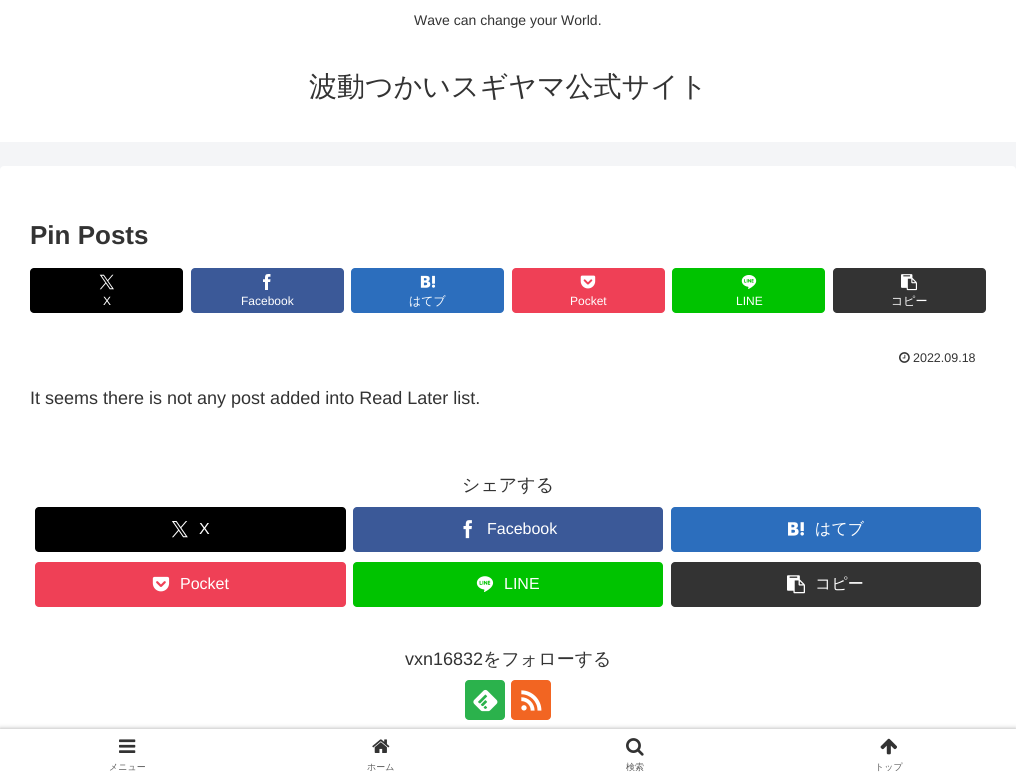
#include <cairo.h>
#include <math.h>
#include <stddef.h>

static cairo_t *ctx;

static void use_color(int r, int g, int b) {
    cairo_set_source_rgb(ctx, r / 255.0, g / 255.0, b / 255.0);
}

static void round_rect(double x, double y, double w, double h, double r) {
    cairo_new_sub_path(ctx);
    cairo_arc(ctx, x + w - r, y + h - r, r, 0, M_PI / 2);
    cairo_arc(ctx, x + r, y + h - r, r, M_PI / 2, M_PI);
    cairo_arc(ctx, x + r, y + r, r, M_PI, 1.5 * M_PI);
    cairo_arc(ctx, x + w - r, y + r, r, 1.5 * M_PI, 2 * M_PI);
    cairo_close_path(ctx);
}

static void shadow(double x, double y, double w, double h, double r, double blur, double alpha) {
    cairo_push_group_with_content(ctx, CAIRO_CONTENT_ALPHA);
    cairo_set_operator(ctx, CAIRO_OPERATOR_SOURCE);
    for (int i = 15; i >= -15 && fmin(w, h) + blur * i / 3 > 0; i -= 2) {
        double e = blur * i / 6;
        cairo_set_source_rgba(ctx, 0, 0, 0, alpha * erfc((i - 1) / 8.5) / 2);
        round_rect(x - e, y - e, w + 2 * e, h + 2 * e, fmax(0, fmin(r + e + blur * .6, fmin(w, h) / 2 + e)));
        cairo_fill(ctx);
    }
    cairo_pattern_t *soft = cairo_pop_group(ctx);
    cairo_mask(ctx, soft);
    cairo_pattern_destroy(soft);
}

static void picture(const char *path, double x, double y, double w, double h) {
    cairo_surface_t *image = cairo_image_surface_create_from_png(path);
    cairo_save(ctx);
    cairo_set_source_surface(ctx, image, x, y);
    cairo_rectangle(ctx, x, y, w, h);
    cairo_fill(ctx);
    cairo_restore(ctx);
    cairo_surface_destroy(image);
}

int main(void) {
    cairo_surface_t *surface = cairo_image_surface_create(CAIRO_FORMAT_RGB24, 1016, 779);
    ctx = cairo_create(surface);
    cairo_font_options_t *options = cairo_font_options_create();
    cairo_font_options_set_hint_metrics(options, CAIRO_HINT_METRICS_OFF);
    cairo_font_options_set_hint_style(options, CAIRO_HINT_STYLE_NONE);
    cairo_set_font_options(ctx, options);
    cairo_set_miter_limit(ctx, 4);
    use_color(244, 245, 247);
    cairo_paint(ctx);
    use_color(255, 255, 255);
    cairo_rectangle(ctx, 0, 0, 1016, 142);
    cairo_fill(ctx);
    cairo_select_font_face(ctx, "Liberation Sans", CAIRO_FONT_SLANT_NORMAL, CAIRO_FONT_WEIGHT_NORMAL);
    cairo_set_font_size(ctx, 14);
    use_color(51, 51, 51);
    cairo_move_to(ctx, 414, 25);
    cairo_show_text(ctx, "Wave can change your World.");
    cairo_select_font_face(ctx, "WenQuanYi Zen Hei Medium", CAIRO_FONT_SLANT_NORMAL, CAIRO_FONT_WEIGHT_NORMAL);
    cairo_set_font_size(ctx, 28);
    cairo_move_to(ctx, 309, 96);
    cairo_show_text(ctx, "波動つかいスギヤマ公式サイト");
    use_color(255, 255, 255);
    round_rect(0, 166, 1016, 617, 4);
    cairo_fill(ctx);
    cairo_select_font_face(ctx, "Liberation Sans", CAIRO_FONT_SLANT_NORMAL, CAIRO_FONT_WEIGHT_BOLD);
    cairo_set_font_size(ctx, 26);
    use_color(51, 51, 51);
    cairo_move_to(ctx, 30, 244);
    cairo_show_text(ctx, "Pin Posts");
    use_color(0, 0, 0);
    round_rect(30, 268, 153, 45, 4);
    cairo_fill(ctx);
    picture("img1.png", 99, 274, 15, 16);
    cairo_select_font_face(ctx, "Liberation Sans", CAIRO_FONT_SLANT_NORMAL, CAIRO_FONT_WEIGHT_NORMAL);
    cairo_set_font_size(ctx, 12);
    use_color(255, 255, 255);
    cairo_move_to(ctx, 103, 305);
    cairo_show_text(ctx, "X");
    use_color(59, 89, 152);
    round_rect(191, 268, 153, 45, 4);
    cairo_fill(ctx);
    picture("img2.png", 263, 274, 8, 16);
    use_color(255, 255, 255);
    cairo_move_to(ctx, 241, 305);
    cairo_show_text(ctx, "Facebook");
    use_color(44, 110, 189);
    round_rect(351, 268, 153, 45, 4);
    cairo_fill(ctx);
    picture("img3.png", 420, 275, 16, 13);
    cairo_select_font_face(ctx, "WenQuanYi Zen Hei Medium", CAIRO_FONT_SLANT_NORMAL, CAIRO_FONT_WEIGHT_NORMAL);
    use_color(255, 255, 255);
    cairo_move_to(ctx, 409, 305);
    cairo_show_text(ctx, "はてブ");
    use_color(239, 64, 86);
    round_rect(512, 268, 153, 45, 4);
    cairo_fill(ctx);
    picture("img4.png", 580, 275, 16, 14);
    cairo_select_font_face(ctx, "Liberation Sans", CAIRO_FONT_SLANT_NORMAL, CAIRO_FONT_WEIGHT_NORMAL);
    use_color(255, 255, 255);
    cairo_move_to(ctx, 570, 305);
    cairo_show_text(ctx, "Pocket");
    use_color(0, 195, 0);
    round_rect(672, 268, 153, 45, 4);
    cairo_fill(ctx);
    picture("img5.png", 741, 275, 16, 14);
    use_color(255, 255, 255);
    cairo_move_to(ctx, 736, 305);
    cairo_show_text(ctx, "LINE");
    use_color(51, 51, 51);
    round_rect(833, 268, 153, 45, 4);
    cairo_fill(ctx);
    picture("img6.png", 901, 274, 16, 17);
    cairo_select_font_face(ctx, "WenQuanYi Zen Hei Medium", CAIRO_FONT_SLANT_NORMAL, CAIRO_FONT_WEIGHT_NORMAL);
    use_color(255, 255, 255);
    cairo_move_to(ctx, 891, 305);
    cairo_show_text(ctx, "コピー");
    picture("img7.png", 899, 352, 11, 11);
    cairo_select_font_face(ctx, "Liberation Sans", CAIRO_FONT_SLANT_NORMAL, CAIRO_FONT_WEIGHT_NORMAL);
    cairo_set_font_size(ctx, 12.5);
    use_color(51, 51, 51);
    cairo_move_to(ctx, 913, 362);
    cairo_show_text(ctx, "2022.09.18");
    cairo_set_font_size(ctx, 18);
    cairo_move_to(ctx, 30, 404);
    cairo_show_text(ctx, "It seems there is not any post added into Read Later list.");
    cairo_select_font_face(ctx, "WenQuanYi Zen Hei Medium", CAIRO_FONT_SLANT_NORMAL, CAIRO_FONT_WEIGHT_NORMAL);
    cairo_move_to(ctx, 462, 491);
    cairo_show_text(ctx, "シェアする");
    use_color(0, 0, 0);
    round_rect(35, 507, 311, 45, 4);
    cairo_fill(ctx);
    picture("img8.png", 172, 521, 16, 17);
    cairo_select_font_face(ctx, "Liberation Sans", CAIRO_FONT_SLANT_NORMAL, CAIRO_FONT_WEIGHT_NORMAL);
    cairo_set_font_size(ctx, 16);
    use_color(255, 255, 255);
    cairo_move_to(ctx, 199, 534);
    cairo_show_text(ctx, "X");
    use_color(59, 89, 152);
    round_rect(353, 507, 310, 45, 4);
    cairo_fill(ctx);
    picture("img9.png", 463, 520, 9, 19);
    use_color(255, 255, 255);
    cairo_move_to(ctx, 487, 534);
    cairo_show_text(ctx, "Facebook");
    use_color(44, 110, 189);
    round_rect(671, 507, 310, 45, 4);
    cairo_fill(ctx);
    picture("img10.png", 788, 522, 16, 14);
    cairo_select_font_face(ctx, "WenQuanYi Zen Hei Medium", CAIRO_FONT_SLANT_NORMAL, CAIRO_FONT_WEIGHT_NORMAL);
    use_color(255, 255, 255);
    cairo_move_to(ctx, 815, 534);
    cairo_show_text(ctx, "はてブ");
    use_color(239, 64, 86);
    round_rect(35, 562, 311, 45, 4);
    cairo_fill(ctx);
    picture("img11.png", 152, 576, 18, 16);
    cairo_select_font_face(ctx, "Liberation Sans", CAIRO_FONT_SLANT_NORMAL, CAIRO_FONT_WEIGHT_NORMAL);
    use_color(255, 255, 255);
    cairo_move_to(ctx, 180, 589);
    cairo_show_text(ctx, "Pocket");
    use_color(0, 195, 0);
    round_rect(353, 562, 310, 45, 4);
    cairo_fill(ctx);
    picture("img12.png", 476, 576, 18, 16);
    use_color(255, 255, 255);
    cairo_move_to(ctx, 504, 589);
    cairo_show_text(ctx, "LINE");
    use_color(51, 51, 51);
    round_rect(671, 562, 310, 45, 4);
    cairo_fill(ctx);
    picture("img13.png", 787, 575, 18, 19);
    cairo_select_font_face(ctx, "WenQuanYi Zen Hei Medium", CAIRO_FONT_SLANT_NORMAL, CAIRO_FONT_WEIGHT_NORMAL);
    use_color(255, 255, 255);
    cairo_move_to(ctx, 815, 589);
    cairo_show_text(ctx, "コピー");
    cairo_select_font_face(ctx, "Liberation Sans", CAIRO_FONT_SLANT_NORMAL, CAIRO_FONT_WEIGHT_NORMAL);
    cairo_set_font_size(ctx, 18);
    use_color(51, 51, 51);
    cairo_move_to(ctx, 405, 665);
    cairo_show_text(ctx, "vxn16832");
    cairo_select_font_face(ctx, "WenQuanYi Zen Hei Medium", CAIRO_FONT_SLANT_NORMAL, CAIRO_FONT_WEIGHT_NORMAL);
    cairo_move_to(ctx, 483, 665);
    cairo_show_text(ctx, "をフォローする");
    use_color(43, 178, 76);
    round_rect(465, 680, 40, 40, 4);
    cairo_fill(ctx);
    picture("img14.png", 473, 689, 25, 23);
    use_color(242, 101, 34);
    round_rect(511, 680, 40, 40, 4);
    cairo_fill(ctx);
    picture("img15.png", 521, 690, 21, 21);
    use_color(169, 169, 169);
    shadow(0, 729, 1016, 50, 0, 2.5, 1);
    use_color(255, 255, 255);
    cairo_rectangle(ctx, 0, 729, 1016, 50);
    cairo_fill(ctx);
    picture("img16.png", 119, 739, 17, 14);
    cairo_set_font_size(ctx, 9);
    use_color(92, 92, 92);
    cairo_move_to(ctx, 109, 770);
    cairo_show_text(ctx, "メニュー");
    picture("img17.png", 372, 739, 18, 14);
    cairo_move_to(ctx, 367, 770);
    cairo_show_text(ctx, "ホーム");
    picture("img18.png", 626, 738, 18, 18);
    cairo_move_to(ctx, 626, 770);
    cairo_show_text(ctx, "検索");
    picture("img19.png", 880, 738, 17, 17);
    cairo_move_to(ctx, 875, 770);
    cairo_show_text(ctx, "トップ");
    cairo_surface_write_to_png(surface, "result.png");
    cairo_font_options_destroy(options);
    cairo_destroy(ctx);
    cairo_surface_destroy(surface);
    return 0;
}
